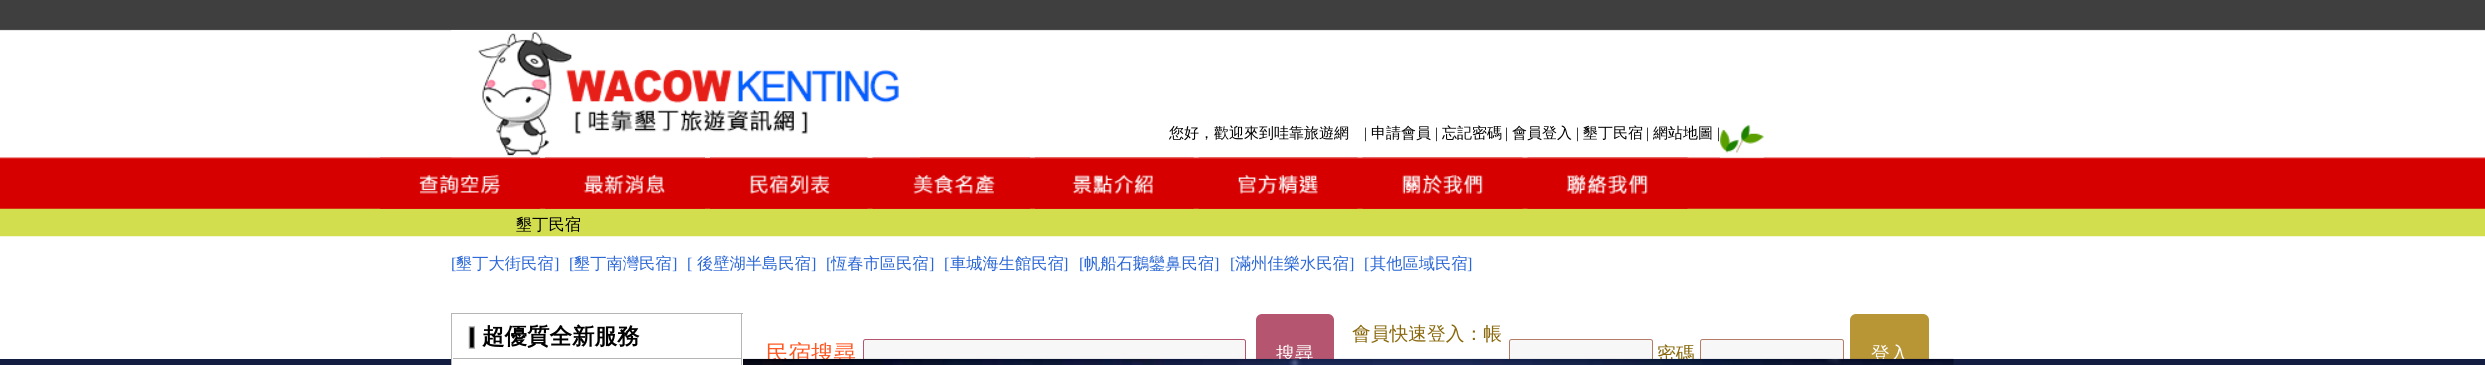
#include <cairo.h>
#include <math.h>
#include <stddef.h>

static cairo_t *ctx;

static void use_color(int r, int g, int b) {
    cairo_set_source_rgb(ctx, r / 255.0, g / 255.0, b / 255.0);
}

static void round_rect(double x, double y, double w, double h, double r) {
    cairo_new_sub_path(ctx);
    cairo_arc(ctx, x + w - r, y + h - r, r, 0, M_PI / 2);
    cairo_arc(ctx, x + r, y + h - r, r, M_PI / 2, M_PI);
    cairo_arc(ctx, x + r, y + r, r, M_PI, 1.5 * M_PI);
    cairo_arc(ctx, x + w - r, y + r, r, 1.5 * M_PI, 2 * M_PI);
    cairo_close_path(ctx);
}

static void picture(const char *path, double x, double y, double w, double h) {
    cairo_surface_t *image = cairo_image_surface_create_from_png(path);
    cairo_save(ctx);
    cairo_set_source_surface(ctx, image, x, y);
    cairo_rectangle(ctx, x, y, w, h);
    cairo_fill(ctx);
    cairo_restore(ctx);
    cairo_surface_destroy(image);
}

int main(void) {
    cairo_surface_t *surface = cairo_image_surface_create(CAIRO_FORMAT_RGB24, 2485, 365);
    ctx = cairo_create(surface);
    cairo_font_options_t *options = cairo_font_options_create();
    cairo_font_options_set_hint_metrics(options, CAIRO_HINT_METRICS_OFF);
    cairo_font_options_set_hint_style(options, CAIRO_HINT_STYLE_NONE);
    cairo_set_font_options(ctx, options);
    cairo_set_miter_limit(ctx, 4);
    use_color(255, 255, 255);
    cairo_paint(ctx);
    picture("img1.png", 0, 0, 2485, 237);
    picture("img2.png", 451, 30, 469, 128);
    picture("img3.png", 1720, 124, 44, 34);
    cairo_select_font_face(ctx, "WenQuanYi Zen Hei Medium", CAIRO_FONT_SLANT_NORMAL, CAIRO_FONT_WEIGHT_NORMAL);
    cairo_set_font_size(ctx, 15);
    use_color(0, 0, 0);
    cairo_move_to(ctx, 1169, 138);
    cairo_show_text(ctx, "您好，歡迎來到哇靠旅遊網");
    cairo_select_font_face(ctx, "Liberation Serif", CAIRO_FONT_SLANT_NORMAL, CAIRO_FONT_WEIGHT_NORMAL);
    cairo_move_to(ctx, 1364, 138);
    cairo_show_text(ctx, "|");
    cairo_select_font_face(ctx, "WenQuanYi Zen Hei Medium", CAIRO_FONT_SLANT_NORMAL, CAIRO_FONT_WEIGHT_NORMAL);
    cairo_move_to(ctx, 1371, 138);
    cairo_show_text(ctx, "申請會員");
    cairo_select_font_face(ctx, "Liberation Serif", CAIRO_FONT_SLANT_NORMAL, CAIRO_FONT_WEIGHT_NORMAL);
    cairo_move_to(ctx, 1435, 138);
    cairo_show_text(ctx, "|");
    cairo_select_font_face(ctx, "WenQuanYi Zen Hei Medium", CAIRO_FONT_SLANT_NORMAL, CAIRO_FONT_WEIGHT_NORMAL);
    cairo_move_to(ctx, 1442, 138);
    cairo_show_text(ctx, "忘記密碼");
    cairo_select_font_face(ctx, "Liberation Serif", CAIRO_FONT_SLANT_NORMAL, CAIRO_FONT_WEIGHT_NORMAL);
    cairo_move_to(ctx, 1505, 138);
    cairo_show_text(ctx, "|");
    cairo_select_font_face(ctx, "WenQuanYi Zen Hei Medium", CAIRO_FONT_SLANT_NORMAL, CAIRO_FONT_WEIGHT_NORMAL);
    cairo_move_to(ctx, 1512, 138);
    cairo_show_text(ctx, "會員登入");
    cairo_select_font_face(ctx, "Liberation Serif", CAIRO_FONT_SLANT_NORMAL, CAIRO_FONT_WEIGHT_NORMAL);
    cairo_move_to(ctx, 1576, 138);
    cairo_show_text(ctx, "|");
    cairo_select_font_face(ctx, "WenQuanYi Zen Hei Medium", CAIRO_FONT_SLANT_NORMAL, CAIRO_FONT_WEIGHT_NORMAL);
    cairo_move_to(ctx, 1583, 138);
    cairo_show_text(ctx, "墾丁民宿");
    cairo_select_font_face(ctx, "Liberation Serif", CAIRO_FONT_SLANT_NORMAL, CAIRO_FONT_WEIGHT_NORMAL);
    cairo_move_to(ctx, 1646, 138);
    cairo_show_text(ctx, "|");
    cairo_select_font_face(ctx, "WenQuanYi Zen Hei Medium", CAIRO_FONT_SLANT_NORMAL, CAIRO_FONT_WEIGHT_NORMAL);
    cairo_move_to(ctx, 1653, 138);
    cairo_show_text(ctx, "網站地圖");
    cairo_select_font_face(ctx, "Liberation Serif", CAIRO_FONT_SLANT_NORMAL, CAIRO_FONT_WEIGHT_NORMAL);
    cairo_move_to(ctx, 1717, 138);
    cairo_show_text(ctx, "|");
    picture("img4.png", 380, 157, 160, 52);
    picture("img5.png", 545, 157, 160, 52);
    picture("img6.png", 710, 157, 158, 52);
    picture("img7.png", 872, 157, 158, 52);
    picture("img8.png", 1035, 157, 159, 52);
    picture("img9.png", 1198, 157, 160, 52);
    picture("img10.png", 1362, 157, 161, 52);
    picture("img11.png", 1527, 157, 161, 52);
    cairo_select_font_face(ctx, "WenQuanYi Zen Hei Medium", CAIRO_FONT_SLANT_NORMAL, CAIRO_FONT_WEIGHT_NORMAL);
    cairo_set_font_size(ctx, 16.25);
    cairo_move_to(ctx, 516, 230);
    cairo_show_text(ctx, "墾丁民宿");
    cairo_select_font_face(ctx, "Liberation Serif", CAIRO_FONT_SLANT_NORMAL, CAIRO_FONT_WEIGHT_NORMAL);
    use_color(41, 102, 214);
    cairo_move_to(ctx, 451, 269);
    cairo_show_text(ctx, "[");
    cairo_select_font_face(ctx, "WenQuanYi Zen Hei Medium", CAIRO_FONT_SLANT_NORMAL, CAIRO_FONT_WEIGHT_NORMAL);
    cairo_move_to(ctx, 456, 269);
    cairo_show_text(ctx, "墾丁大街民宿");
    cairo_select_font_face(ctx, "Liberation Serif", CAIRO_FONT_SLANT_NORMAL, CAIRO_FONT_WEIGHT_NORMAL);
    cairo_move_to(ctx, 554, 269);
    cairo_show_text(ctx, "]");
    cairo_move_to(ctx, 569, 269);
    cairo_show_text(ctx, "[");
    cairo_select_font_face(ctx, "WenQuanYi Zen Hei Medium", CAIRO_FONT_SLANT_NORMAL, CAIRO_FONT_WEIGHT_NORMAL);
    cairo_move_to(ctx, 574, 269);
    cairo_show_text(ctx, "墾丁南灣民宿");
    cairo_select_font_face(ctx, "Liberation Serif", CAIRO_FONT_SLANT_NORMAL, CAIRO_FONT_WEIGHT_NORMAL);
    cairo_move_to(ctx, 672, 269);
    cairo_show_text(ctx, "]");
    cairo_move_to(ctx, 687, 269);
    cairo_show_text(ctx, "[");
    cairo_select_font_face(ctx, "WenQuanYi Zen Hei Medium", CAIRO_FONT_SLANT_NORMAL, CAIRO_FONT_WEIGHT_NORMAL);
    cairo_move_to(ctx, 697, 269);
    cairo_show_text(ctx, "後壁湖半島民宿");
    cairo_select_font_face(ctx, "Liberation Serif", CAIRO_FONT_SLANT_NORMAL, CAIRO_FONT_WEIGHT_NORMAL);
    cairo_move_to(ctx, 811, 269);
    cairo_show_text(ctx, "]");
    cairo_move_to(ctx, 826, 269);
    cairo_show_text(ctx, "[");
    cairo_select_font_face(ctx, "WenQuanYi Zen Hei Medium", CAIRO_FONT_SLANT_NORMAL, CAIRO_FONT_WEIGHT_NORMAL);
    cairo_move_to(ctx, 831, 269);
    cairo_show_text(ctx, "恆春市區民宿");
    cairo_select_font_face(ctx, "Liberation Serif", CAIRO_FONT_SLANT_NORMAL, CAIRO_FONT_WEIGHT_NORMAL);
    cairo_move_to(ctx, 929, 269);
    cairo_show_text(ctx, "]");
    cairo_move_to(ctx, 944, 269);
    cairo_show_text(ctx, "[");
    cairo_select_font_face(ctx, "WenQuanYi Zen Hei Medium", CAIRO_FONT_SLANT_NORMAL, CAIRO_FONT_WEIGHT_NORMAL);
    cairo_move_to(ctx, 950, 269);
    cairo_show_text(ctx, "車城海生館民宿");
    cairo_select_font_face(ctx, "Liberation Serif", CAIRO_FONT_SLANT_NORMAL, CAIRO_FONT_WEIGHT_NORMAL);
    cairo_move_to(ctx, 1063, 269);
    cairo_show_text(ctx, "]");
    cairo_move_to(ctx, 1079, 269);
    cairo_show_text(ctx, "[");
    cairo_select_font_face(ctx, "WenQuanYi Zen Hei Medium", CAIRO_FONT_SLANT_NORMAL, CAIRO_FONT_WEIGHT_NORMAL);
    cairo_move_to(ctx, 1084, 269);
    cairo_show_text(ctx, "帆船石鵝鑾鼻民宿");
    cairo_select_font_face(ctx, "Liberation Serif", CAIRO_FONT_SLANT_NORMAL, CAIRO_FONT_WEIGHT_NORMAL);
    cairo_move_to(ctx, 1214, 269);
    cairo_show_text(ctx, "]");
    cairo_move_to(ctx, 1230, 269);
    cairo_show_text(ctx, "[");
    cairo_select_font_face(ctx, "WenQuanYi Zen Hei Medium", CAIRO_FONT_SLANT_NORMAL, CAIRO_FONT_WEIGHT_NORMAL);
    cairo_move_to(ctx, 1235, 269);
    cairo_show_text(ctx, "滿州佳樂水民宿");
    cairo_select_font_face(ctx, "Liberation Serif", CAIRO_FONT_SLANT_NORMAL, CAIRO_FONT_WEIGHT_NORMAL);
    cairo_move_to(ctx, 1349, 269);
    cairo_show_text(ctx, "]");
    cairo_move_to(ctx, 1364, 269);
    cairo_show_text(ctx, "[");
    cairo_select_font_face(ctx, "WenQuanYi Zen Hei Medium", CAIRO_FONT_SLANT_NORMAL, CAIRO_FONT_WEIGHT_NORMAL);
    cairo_move_to(ctx, 1370, 269);
    cairo_show_text(ctx, "其他區域民宿");
    cairo_select_font_face(ctx, "Liberation Serif", CAIRO_FONT_SLANT_NORMAL, CAIRO_FONT_WEIGHT_NORMAL);
    cairo_move_to(ctx, 1467, 269);
    cairo_show_text(ctx, "]");
    use_color(19, 29, 65);
    cairo_rectangle(ctx, 0, 359, 2485, 6);
    cairo_fill(ctx);
    use_color(255, 255, 255);
    cairo_rectangle(ctx, 452, 359, 291, 6);
    cairo_fill(ctx);
    use_color(182, 182, 182);
    cairo_rectangle(ctx, 451, 313, 292, 1);
    cairo_fill(ctx);
    cairo_rectangle(ctx, 741, 313, 1, 52);
    cairo_fill(ctx);
    cairo_rectangle(ctx, 451, 313, 1, 52);
    cairo_fill(ctx);
    picture("img12.png", 468, 326, 7, 23);
    cairo_rectangle(ctx, 453, 358, 288, 1);
    cairo_fill(ctx);
    cairo_select_font_face(ctx, "WenQuanYi Zen Hei", CAIRO_FONT_SLANT_NORMAL, CAIRO_FONT_WEIGHT_BOLD);
    cairo_set_font_size(ctx, 22.5);
    use_color(0, 0, 0);
    cairo_move_to(ctx, 482, 344);
    cairo_show_text(ctx, "超優質全新服務");
    cairo_select_font_face(ctx, "WenQuanYi Zen Hei Medium", CAIRO_FONT_SLANT_NORMAL, CAIRO_FONT_WEIGHT_NORMAL);
    cairo_set_font_size(ctx, 18.75);
    use_color(137, 104, 12);
    cairo_move_to(ctx, 1352, 340);
    cairo_show_text(ctx, "會員快速登入：帳");
    cairo_set_font_size(ctx, 22.5);
    use_color(255, 87, 34);
    cairo_move_to(ctx, 766, 361);
    cairo_show_text(ctx, "民宿搜尋");
    use_color(247, 247, 247);
    round_rect(863.5, 339.5, 382, 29, 2);
    cairo_fill_preserve(ctx);
    use_color(181, 85, 111);
    cairo_set_line_width(ctx, 1);
    cairo_stroke(ctx);
    round_rect(1256, 314, 78, 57, 6);
    cairo_fill(ctx);
    cairo_set_font_size(ctx, 18.75);
    use_color(255, 255, 255);
    cairo_move_to(ctx, 1276, 360);
    cairo_show_text(ctx, "搜尋");
    use_color(247, 247, 247);
    round_rect(1509.5, 339.5, 143, 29, 2);
    cairo_fill_preserve(ctx);
    use_color(181, 125, 104);
    cairo_stroke(ctx);
    use_color(137, 104, 12);
    cairo_move_to(ctx, 1657, 360);
    cairo_show_text(ctx, "密碼");
    use_color(247, 247, 247);
    round_rect(1700.5, 339.5, 143, 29, 2);
    cairo_fill_preserve(ctx);
    use_color(181, 125, 104);
    cairo_stroke(ctx);
    use_color(184, 149, 53);
    round_rect(1850, 314, 79, 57, 6);
    cairo_fill(ctx);
    use_color(255, 255, 255);
    cairo_move_to(ctx, 1871, 360);
    cairo_show_text(ctx, "登入");
    picture("img13.png", 743, 358, 1211, 7);
    cairo_surface_write_to_png(surface, "result.png");
    cairo_font_options_destroy(options);
    cairo_destroy(ctx);
    cairo_surface_destroy(surface);
    return 0;
}
